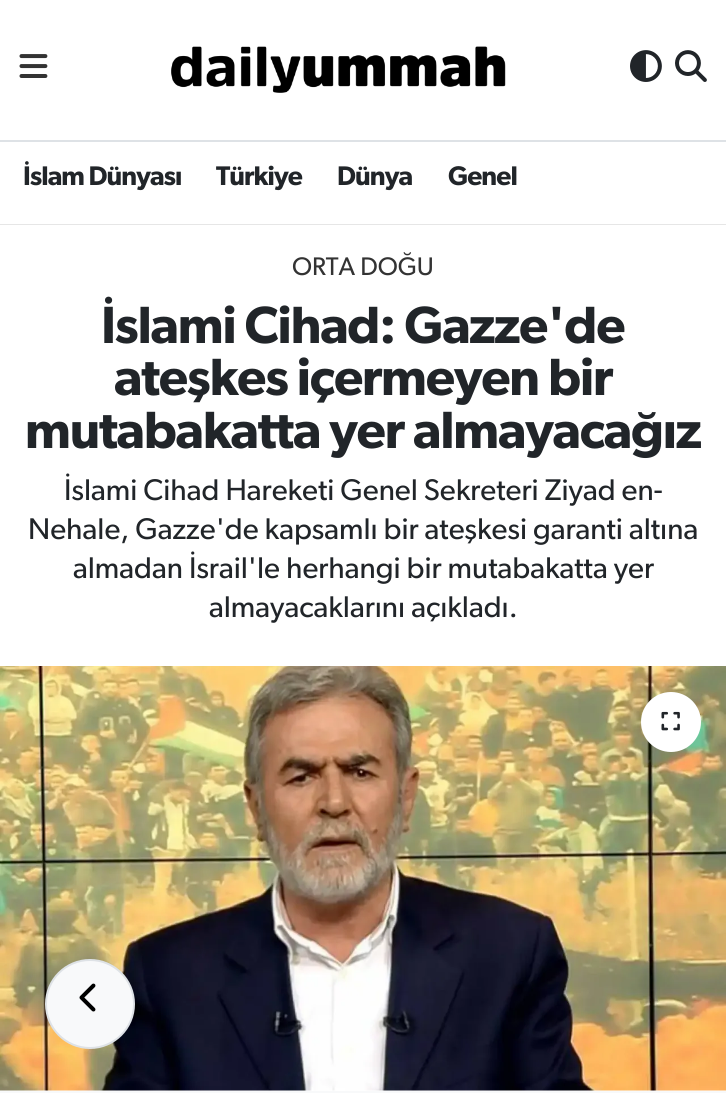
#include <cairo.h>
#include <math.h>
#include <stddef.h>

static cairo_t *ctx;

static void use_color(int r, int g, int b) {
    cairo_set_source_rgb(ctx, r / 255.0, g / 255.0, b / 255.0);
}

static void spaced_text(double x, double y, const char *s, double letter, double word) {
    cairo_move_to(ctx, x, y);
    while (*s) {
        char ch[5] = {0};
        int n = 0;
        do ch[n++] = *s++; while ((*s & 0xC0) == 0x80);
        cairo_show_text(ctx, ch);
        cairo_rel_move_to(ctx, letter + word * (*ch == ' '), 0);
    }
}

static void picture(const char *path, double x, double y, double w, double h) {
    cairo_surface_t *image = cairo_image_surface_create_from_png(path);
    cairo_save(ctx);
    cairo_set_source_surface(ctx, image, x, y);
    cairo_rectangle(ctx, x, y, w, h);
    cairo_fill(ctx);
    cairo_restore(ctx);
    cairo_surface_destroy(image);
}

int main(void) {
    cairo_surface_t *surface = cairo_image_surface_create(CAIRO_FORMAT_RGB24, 726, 1093);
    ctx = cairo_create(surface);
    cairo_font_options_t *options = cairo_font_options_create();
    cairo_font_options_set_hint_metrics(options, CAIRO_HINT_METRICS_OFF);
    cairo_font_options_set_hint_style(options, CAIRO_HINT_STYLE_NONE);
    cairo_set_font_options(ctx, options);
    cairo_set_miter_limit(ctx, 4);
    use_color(255, 255, 255);
    cairo_paint(ctx);
    use_color(222, 226, 230);
    cairo_rectangle(ctx, 0, 140, 726, 2);
    cairo_fill(ctx);
    picture("img1.png", 19, 54, 29, 24);
    picture("img2.png", 171, 46, 335, 47);
    picture("img3.png", 630, 50, 32, 32);
    picture("img4.png", 675, 50, 32, 32);
    use_color(230, 230, 230);
    cairo_rectangle(ctx, 0, 224, 726, 1);
    cairo_fill(ctx);
    cairo_select_font_face(ctx, "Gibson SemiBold", CAIRO_FONT_SLANT_NORMAL, CAIRO_FONT_WEIGHT_NORMAL);
    cairo_set_font_size(ctx, 27);
    use_color(33, 37, 41);
    spaced_text(23, 185, "İslam Dünyası", -0.9, 0);
    spaced_text(216, 185, "Türkiye", -0.9, 0);
    spaced_text(337, 185, "Dünya", -0.9, 0);
    spaced_text(448, 185, "Genel", -0.9, 0);
    cairo_select_font_face(ctx, "Gibson", CAIRO_FONT_SLANT_NORMAL, CAIRO_FONT_WEIGHT_NORMAL);
    cairo_set_font_size(ctx, 25.5);
    use_color(51, 51, 51);
    cairo_move_to(ctx, 292, 275);
    cairo_show_text(ctx, "ORTA DOĞU");
    cairo_select_font_face(ctx, "Gibson SemiBold", CAIRO_FONT_SLANT_NORMAL, CAIRO_FONT_WEIGHT_NORMAL);
    cairo_set_font_size(ctx, 52.5);
    use_color(33, 37, 41);
    spaced_text(101, 343, "İslami Cihad: Gazze'de", -1.2, 0);
    spaced_text(114, 395, "ateşkes içermeyen bir", -1.2, 0);
    spaced_text(25, 448, "mutabakatta yer almayacağız", -1.2, 0);
    cairo_select_font_face(ctx, "Gibson", CAIRO_FONT_SLANT_NORMAL, CAIRO_FONT_WEIGHT_NORMAL);
    cairo_set_font_size(ctx, 30);
    cairo_move_to(ctx, 64, 500);
    cairo_show_text(ctx, "İslami Cihad Hareketi Genel Sekreteri Ziyad en-");
    cairo_move_to(ctx, 28, 539);
    cairo_show_text(ctx, "Nehale, Gazze'de kapsamlı bir ateşkesi garanti altına");
    cairo_move_to(ctx, 73, 578);
    cairo_show_text(ctx, "almadan İsrail'le herhangi bir mutabakatta yer");
    cairo_move_to(ctx, 209, 617);
    cairo_show_text(ctx, "almayacaklarını açıkladı.");
    picture("img5.png", 0, 666, 726, 425);
    use_color(255, 255, 255);
    cairo_arc(ctx, 671, 722, 30, 0, 2 * M_PI);
    cairo_fill(ctx);
    picture("img6.png", 661, 711, 19, 20);
    use_color(248, 249, 250);
    cairo_rectangle(ctx, 0, 1091, 726, 2);
    cairo_fill(ctx);
    cairo_arc(ctx, 90, 1004, 44, 0, 2 * M_PI);
    cairo_fill_preserve(ctx);
    use_color(222, 226, 230);
    cairo_stroke(ctx);
    picture("img7.png", 79, 983, 17, 29);
    cairo_surface_write_to_png(surface, "result.png");
    cairo_font_options_destroy(options);
    cairo_destroy(ctx);
    cairo_surface_destroy(surface);
    return 0;
}
